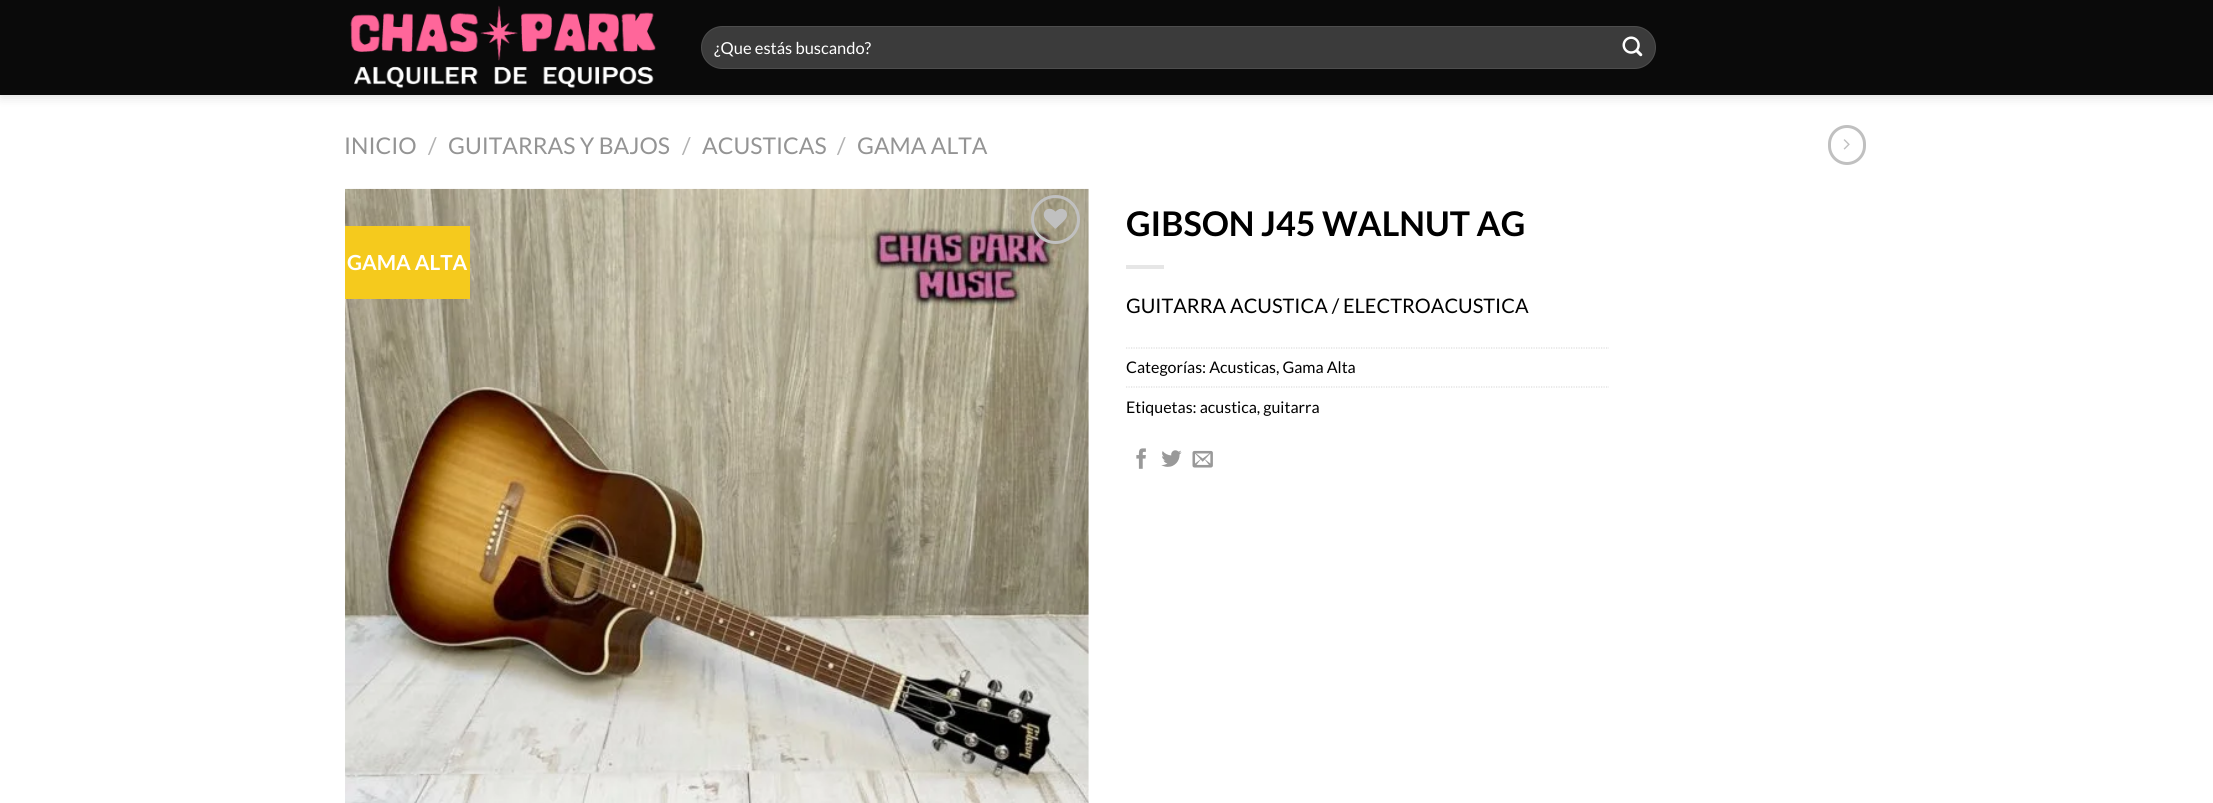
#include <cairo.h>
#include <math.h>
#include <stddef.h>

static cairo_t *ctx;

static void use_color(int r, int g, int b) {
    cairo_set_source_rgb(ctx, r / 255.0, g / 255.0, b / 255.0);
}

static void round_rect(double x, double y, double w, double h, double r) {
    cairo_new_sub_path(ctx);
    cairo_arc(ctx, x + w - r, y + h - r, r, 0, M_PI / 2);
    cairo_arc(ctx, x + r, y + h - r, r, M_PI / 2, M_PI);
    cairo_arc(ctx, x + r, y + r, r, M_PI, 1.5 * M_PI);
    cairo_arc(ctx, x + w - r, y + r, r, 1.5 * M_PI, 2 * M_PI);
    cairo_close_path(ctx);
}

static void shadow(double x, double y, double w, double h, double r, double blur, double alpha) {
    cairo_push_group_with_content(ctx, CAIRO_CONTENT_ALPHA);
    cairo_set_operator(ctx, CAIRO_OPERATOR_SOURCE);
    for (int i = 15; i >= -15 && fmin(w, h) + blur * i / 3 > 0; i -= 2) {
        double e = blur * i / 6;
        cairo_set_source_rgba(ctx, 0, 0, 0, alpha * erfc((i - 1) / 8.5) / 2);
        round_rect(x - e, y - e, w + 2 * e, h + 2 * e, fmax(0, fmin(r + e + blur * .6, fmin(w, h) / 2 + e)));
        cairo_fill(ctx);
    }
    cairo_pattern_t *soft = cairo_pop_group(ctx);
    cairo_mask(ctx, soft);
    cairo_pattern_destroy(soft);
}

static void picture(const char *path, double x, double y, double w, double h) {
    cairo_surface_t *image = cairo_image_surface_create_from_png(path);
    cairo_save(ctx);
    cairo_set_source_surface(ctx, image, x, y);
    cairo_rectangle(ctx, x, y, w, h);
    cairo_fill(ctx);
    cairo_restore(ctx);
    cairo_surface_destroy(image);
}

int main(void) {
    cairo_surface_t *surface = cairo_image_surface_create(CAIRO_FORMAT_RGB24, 2213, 803);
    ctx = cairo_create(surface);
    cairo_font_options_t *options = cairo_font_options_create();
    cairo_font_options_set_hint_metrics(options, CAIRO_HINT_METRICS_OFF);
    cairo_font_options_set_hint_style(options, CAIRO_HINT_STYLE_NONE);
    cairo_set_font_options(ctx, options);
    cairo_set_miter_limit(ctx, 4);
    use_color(255, 255, 255);
    cairo_paint(ctx);
    use_color(0, 0, 0);
    shadow(1, 1, 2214, 95, 0, 6, 0.15);
    use_color(10, 10, 10);
    cairo_rectangle(ctx, 0, 0, 2213, 95);
    cairo_fill(ctx);
    picture("img1.png", 350, 5, 306, 83);
    use_color(59, 59, 59);
    round_rect(701, 26, 955, 43, 21.5);
    cairo_fill(ctx);
    round_rect(701.5, 26.5, 954, 42, 21);
    cairo_set_source_rgba(ctx, 1, 1, 1, 0.09);
    cairo_set_line_width(ctx, 1);
    cairo_stroke(ctx);
    cairo_select_font_face(ctx, "Lato", CAIRO_FONT_SLANT_NORMAL, CAIRO_FONT_WEIGHT_NORMAL);
    cairo_set_font_size(ctx, 16.5);
    use_color(255, 255, 255);
    cairo_move_to(ctx, 714, 54);
    cairo_show_text(ctx, "¿Que estás buscando?");
    picture("img2.png", 1622, 36, 21, 21);
    cairo_set_font_size(ctx, 23);
    use_color(148, 148, 148);
    cairo_move_to(ctx, 344, 154);
    cairo_show_text(ctx, "INICIO");
    use_color(178, 178, 178);
    cairo_move_to(ctx, 428, 154);
    cairo_show_text(ctx, "/");
    use_color(148, 148, 148);
    cairo_move_to(ctx, 448, 154);
    cairo_show_text(ctx, "GUITARRAS Y BAJOS");
    use_color(178, 178, 178);
    cairo_move_to(ctx, 682, 154);
    cairo_show_text(ctx, "/");
    use_color(148, 148, 148);
    cairo_move_to(ctx, 702, 154);
    cairo_show_text(ctx, "ACUSTICAS");
    use_color(178, 178, 178);
    cairo_move_to(ctx, 837, 154);
    cairo_show_text(ctx, "/");
    use_color(148, 148, 148);
    cairo_move_to(ctx, 857, 154);
    cairo_show_text(ctx, "GAMA ALTA");
    round_rect(1829.5, 126.5, 35, 37, 17.5);
    use_color(192, 192, 192);
    cairo_set_line_width(ctx, 3);
    cairo_stroke(ctx);
    picture("img3.png", 1843, 139, 7, 11);
    picture("img4.png", 345, 188, 744, 615);
    cairo_arc(ctx, 1055.5, 219.5, 23, 0, 2 * M_PI);
    cairo_stroke(ctx);
    picture("img5.png", 1043, 208, 24, 21);
    use_color(245, 202, 29);
    cairo_rectangle(ctx, 345, 226, 125, 73);
    cairo_fill(ctx);
    cairo_select_font_face(ctx, "Lato", CAIRO_FONT_SLANT_NORMAL, CAIRO_FONT_WEIGHT_BOLD);
    cairo_set_font_size(ctx, 20.75);
    use_color(255, 255, 255);
    cairo_move_to(ctx, 347, 270);
    cairo_show_text(ctx, "GAMA ALTA");
    cairo_set_font_size(ctx, 34);
    use_color(0, 0, 0);
    cairo_move_to(ctx, 1126, 236);
    cairo_show_text(ctx, "GIBSON J45 WALNUT AG");
    use_color(230, 230, 230);
    cairo_rectangle(ctx, 1126, 265, 38, 4);
    cairo_fill(ctx);
    cairo_select_font_face(ctx, "Lato", CAIRO_FONT_SLANT_NORMAL, CAIRO_FONT_WEIGHT_NORMAL);
    cairo_set_font_size(ctx, 20);
    use_color(0, 0, 0);
    cairo_move_to(ctx, 1126, 313);
    cairo_show_text(ctx, "GUITARRA ACUSTICA / ELECTROACUSTICA");
    cairo_new_path(ctx);
    cairo_move_to(ctx, 1126, 348);
    cairo_line_to(ctx, 1609, 348);
    use_color(221, 221, 221);
    cairo_set_line_width(ctx, 1.2);
    cairo_set_dash(ctx, (double[]){1.25, 1.25}, 2, 0);
    cairo_stroke(ctx);
    cairo_set_font_size(ctx, 16);
    use_color(0, 0, 0);
    cairo_move_to(ctx, 1126, 373);
    cairo_show_text(ctx, "Categorías: Acusticas, Gama Alta");
    cairo_new_path(ctx);
    cairo_move_to(ctx, 1126, 387);
    cairo_line_to(ctx, 1609, 387);
    use_color(221, 221, 221);
    cairo_stroke(ctx);
    use_color(0, 0, 0);
    cairo_move_to(ctx, 1126, 413);
    cairo_show_text(ctx, "Etiquetas: acustica, guitarra");
    picture("img6.png", 1136, 448, 10, 21);
    picture("img7.png", 1161, 450, 21, 17);
    picture("img8.png", 1192, 450, 21, 18);
    cairo_surface_write_to_png(surface, "result.png");
    cairo_font_options_destroy(options);
    cairo_destroy(ctx);
    cairo_surface_destroy(surface);
    return 0;
}
